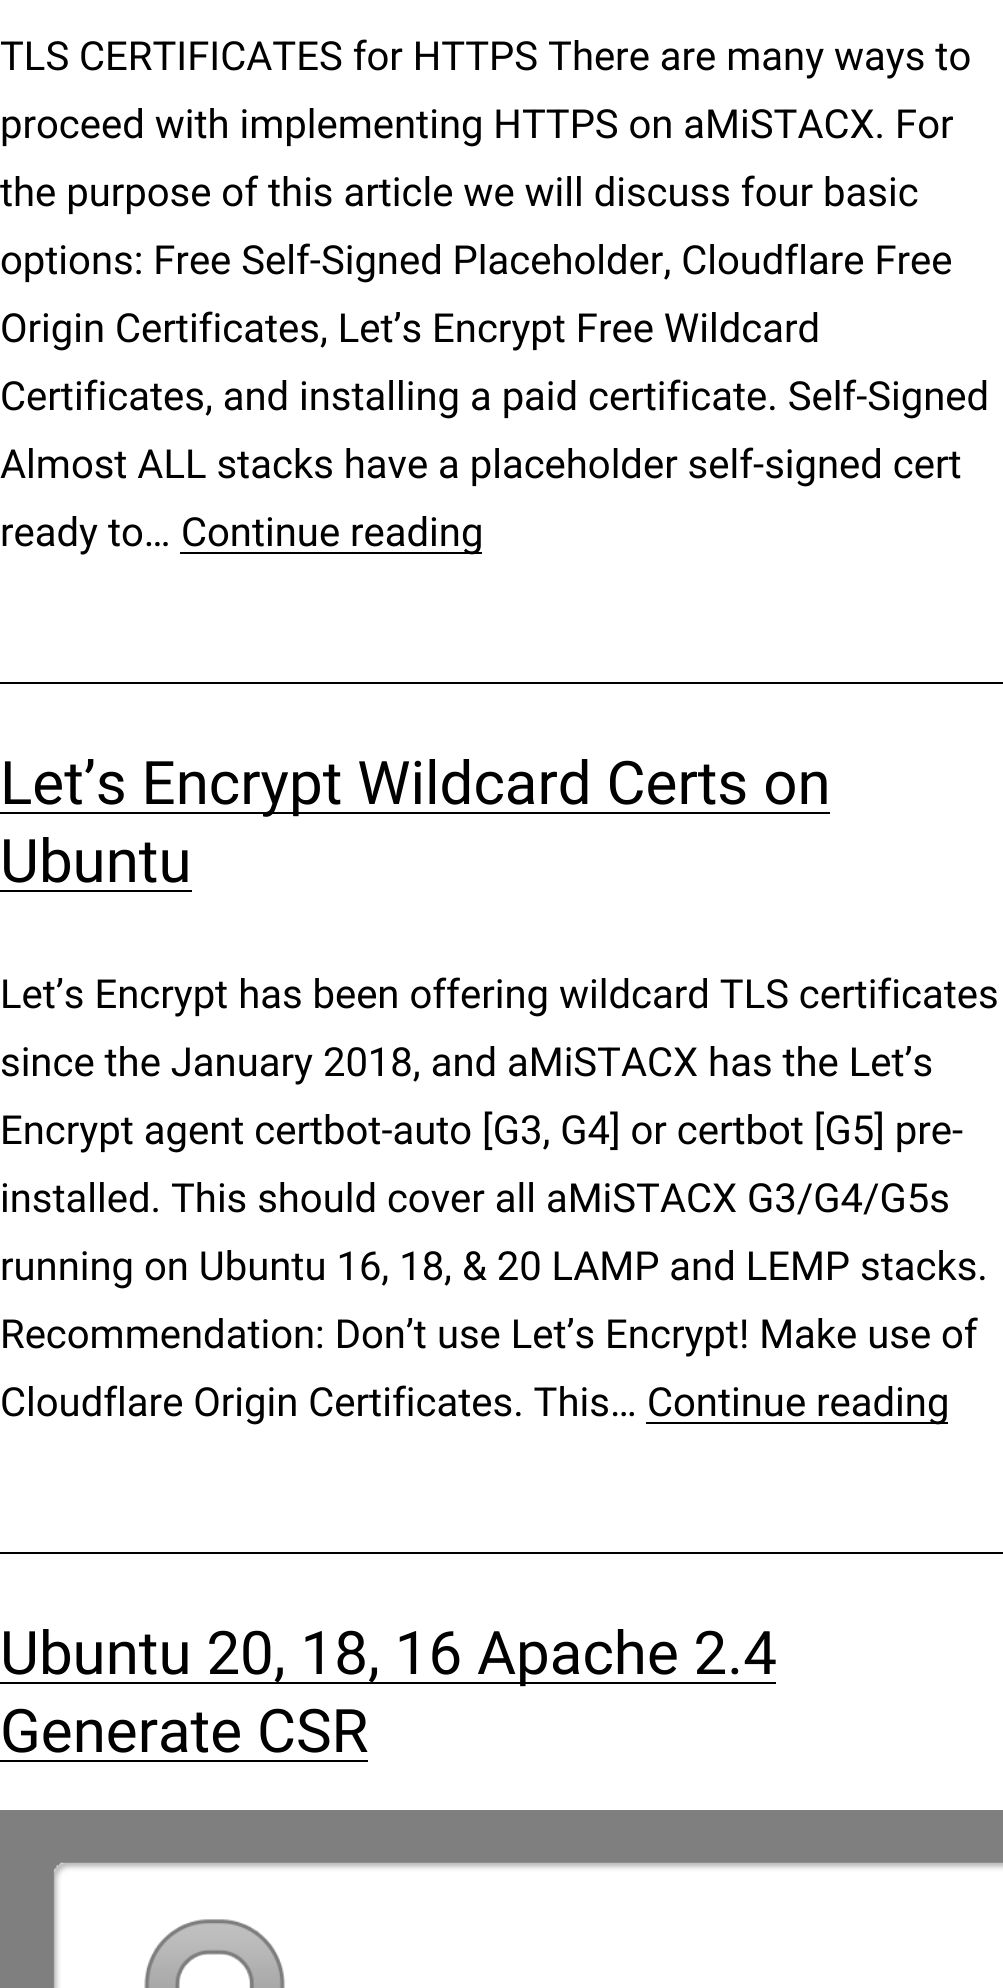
#include <cairo.h>
#include <math.h>
#include <stddef.h>

static cairo_t *ctx;

static void use_color(int r, int g, int b) {
    cairo_set_source_rgb(ctx, r / 255.0, g / 255.0, b / 255.0);
}

static void picture(const char *path, double x, double y, double w, double h) {
    cairo_surface_t *image = cairo_image_surface_create_from_png(path);
    cairo_save(ctx);
    cairo_set_source_surface(ctx, image, x, y);
    cairo_rectangle(ctx, x, y, w, h);
    cairo_fill(ctx);
    cairo_restore(ctx);
    cairo_surface_destroy(image);
}

int main(void) {
    cairo_surface_t *surface = cairo_image_surface_create(CAIRO_FORMAT_RGB24, 1003, 1988);
    ctx = cairo_create(surface);
    cairo_font_options_t *options = cairo_font_options_create();
    cairo_font_options_set_hint_metrics(options, CAIRO_HINT_METRICS_OFF);
    cairo_font_options_set_hint_style(options, CAIRO_HINT_STYLE_NONE);
    cairo_set_font_options(ctx, options);
    cairo_set_miter_limit(ctx, 4);
    use_color(255, 255, 255);
    cairo_paint(ctx);
    cairo_select_font_face(ctx, "Roboto", CAIRO_FONT_SLANT_NORMAL, CAIRO_FONT_WEIGHT_NORMAL);
    cairo_set_font_size(ctx, 40);
    use_color(0, 0, 0);
    cairo_move_to(ctx, 0, 70);
    cairo_show_text(ctx, "TLS CERTIFICATES for HTTPS There are many ways to");
    cairo_move_to(ctx, 0, 138);
    cairo_show_text(ctx, "proceed with implementing HTTPS on aMiSTACX. For");
    cairo_move_to(ctx, 0, 206);
    cairo_show_text(ctx, "the purpose of this article we will discuss four basic");
    cairo_move_to(ctx, 0, 274);
    cairo_show_text(ctx, "options: Free Self-Signed Placeholder, Cloudflare Free");
    cairo_move_to(ctx, 0, 342);
    cairo_show_text(ctx, "Origin Certificates, Let’s Encrypt Free Wildcard");
    cairo_move_to(ctx, 0, 410);
    cairo_show_text(ctx, "Certificates, and installing a paid certificate. Self-Signed");
    cairo_move_to(ctx, 0, 478);
    cairo_show_text(ctx, "Almost ALL stacks have a placeholder self-signed cert");
    cairo_move_to(ctx, 0, 546);
    cairo_show_text(ctx, "ready to…");
    cairo_rectangle(ctx, 180, 552, 302, 2);
    cairo_fill(ctx);
    cairo_move_to(ctx, 181, 546);
    cairo_show_text(ctx, "Continue reading");
    cairo_rectangle(ctx, 0, 682, 1003, 2);
    cairo_fill(ctx);
    cairo_rectangle(ctx, 0, 812, 830, 2);
    cairo_fill(ctx);
    cairo_set_font_size(ctx, 60);
    cairo_move_to(ctx, 0, 804);
    cairo_show_text(ctx, "Let’s Encrypt Wildcard Certs on");
    cairo_move_to(ctx, 0, 882);
    cairo_show_text(ctx, "Ubuntu");
    cairo_rectangle(ctx, 0, 890, 192, 2);
    cairo_fill(ctx);
    cairo_set_font_size(ctx, 40);
    cairo_move_to(ctx, 0, 1008);
    cairo_show_text(ctx, "Let’s Encrypt has been offering wildcard TLS certificates");
    cairo_move_to(ctx, 0, 1076);
    cairo_show_text(ctx, "since the January 2018, and aMiSTACX has the Let’s");
    cairo_move_to(ctx, 0, 1144);
    cairo_show_text(ctx, "Encrypt agent certbot-auto [G3, G4] or certbot [G5] pre-");
    cairo_move_to(ctx, 0, 1212);
    cairo_show_text(ctx, "installed. This should cover all aMiSTACX G3/G4/G5s");
    cairo_move_to(ctx, 0, 1280);
    cairo_show_text(ctx, "running on Ubuntu 16, 18, & 20 LAMP and LEMP stacks.");
    cairo_move_to(ctx, 0, 1348);
    cairo_show_text(ctx, "Recommendation: Don’t use Let’s Encrypt! Make use of");
    cairo_move_to(ctx, 0, 1416);
    cairo_show_text(ctx, "Cloudflare Origin Certificates. This…");
    cairo_rectangle(ctx, 646, 1422, 302, 2);
    cairo_fill(ctx);
    cairo_move_to(ctx, 647, 1416);
    cairo_show_text(ctx, "Continue reading");
    cairo_rectangle(ctx, 0, 1552, 1003, 2);
    cairo_fill(ctx);
    cairo_rectangle(ctx, 0, 1682, 776, 2);
    cairo_fill(ctx);
    cairo_set_font_size(ctx, 60);
    cairo_move_to(ctx, 0, 1674);
    cairo_show_text(ctx, "Ubuntu 20, 18, 16 Apache 2.4");
    cairo_move_to(ctx, 0, 1752);
    cairo_show_text(ctx, "Generate CSR");
    cairo_rectangle(ctx, 0, 1760, 368, 2);
    cairo_fill(ctx);
    picture("img1.png", 0, 1810, 1003, 178);
    cairo_surface_write_to_png(surface, "result.png");
    cairo_font_options_destroy(options);
    cairo_destroy(ctx);
    cairo_surface_destroy(surface);
    return 0;
}
